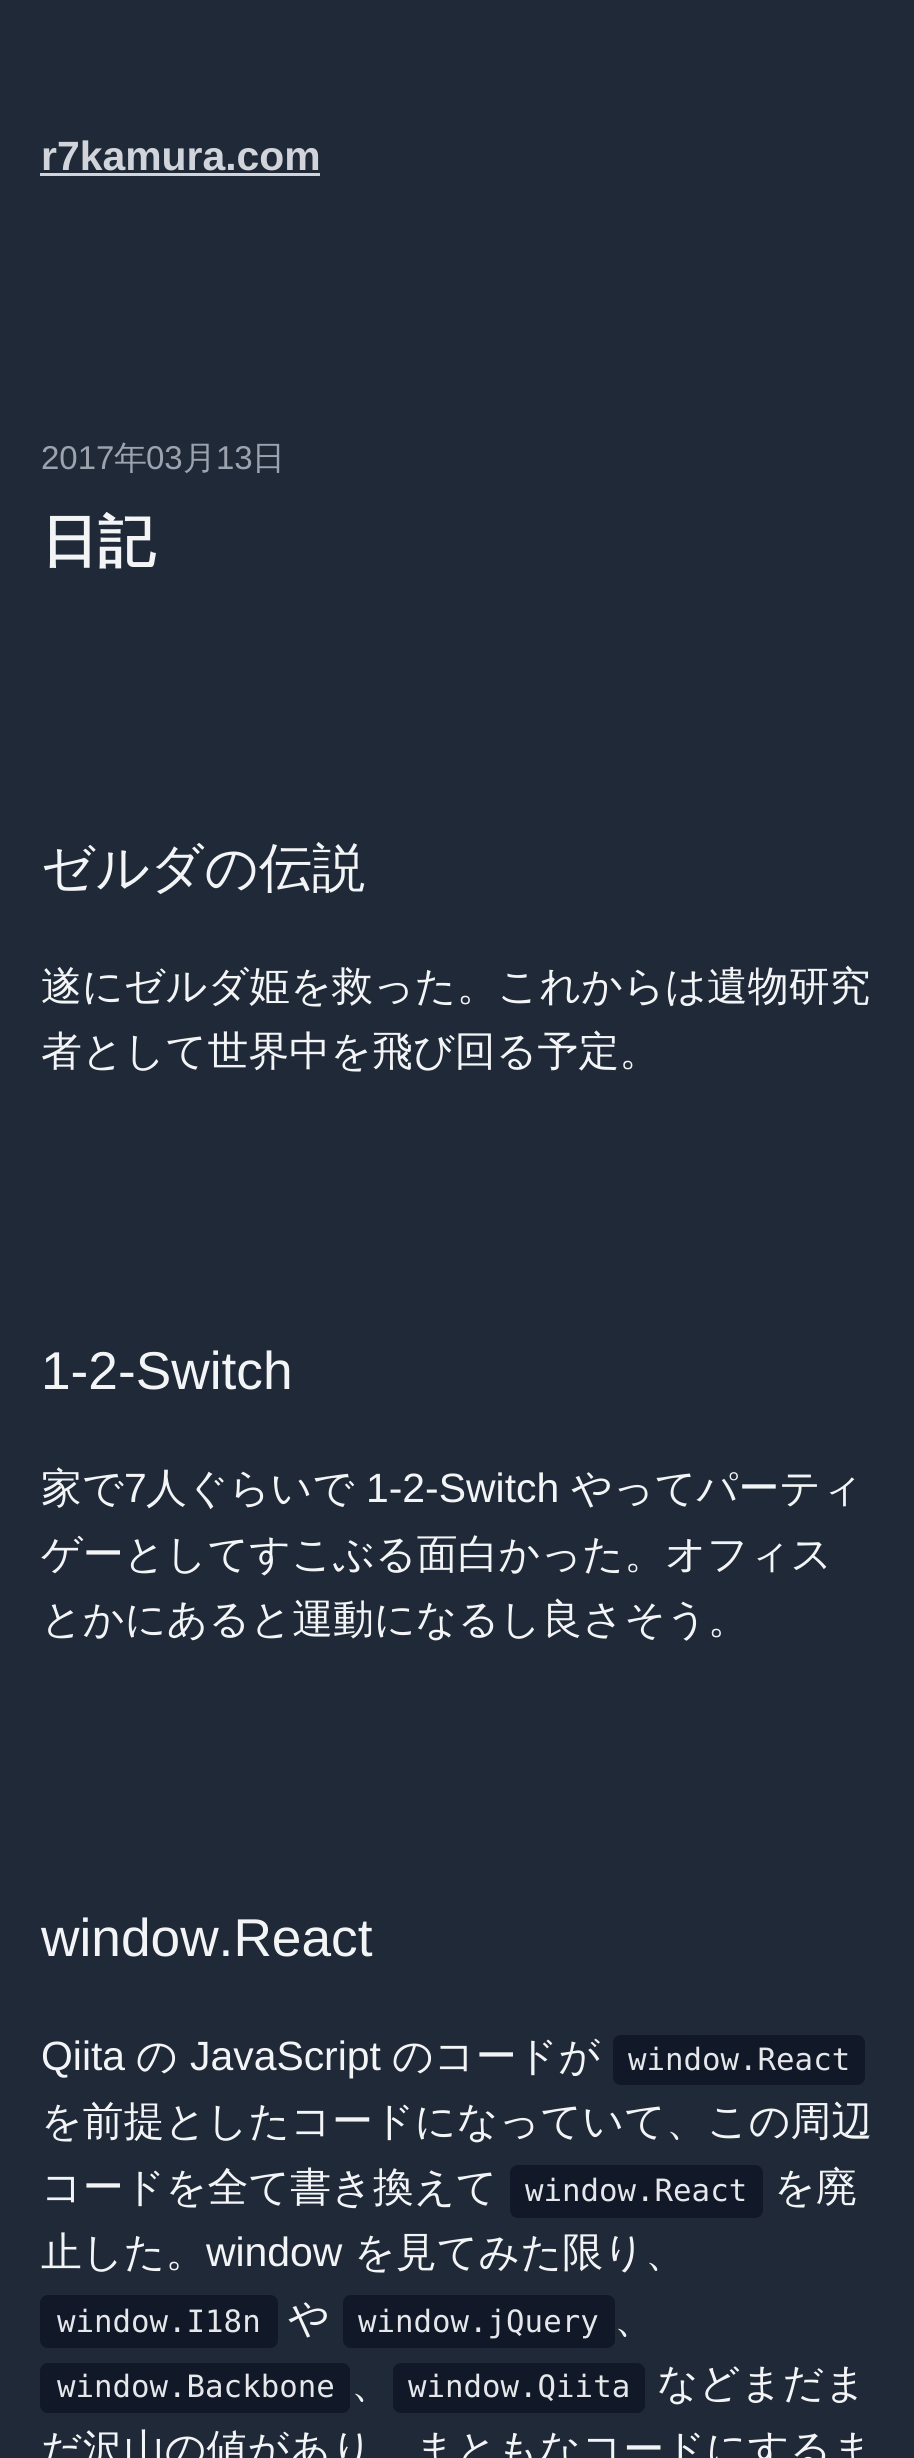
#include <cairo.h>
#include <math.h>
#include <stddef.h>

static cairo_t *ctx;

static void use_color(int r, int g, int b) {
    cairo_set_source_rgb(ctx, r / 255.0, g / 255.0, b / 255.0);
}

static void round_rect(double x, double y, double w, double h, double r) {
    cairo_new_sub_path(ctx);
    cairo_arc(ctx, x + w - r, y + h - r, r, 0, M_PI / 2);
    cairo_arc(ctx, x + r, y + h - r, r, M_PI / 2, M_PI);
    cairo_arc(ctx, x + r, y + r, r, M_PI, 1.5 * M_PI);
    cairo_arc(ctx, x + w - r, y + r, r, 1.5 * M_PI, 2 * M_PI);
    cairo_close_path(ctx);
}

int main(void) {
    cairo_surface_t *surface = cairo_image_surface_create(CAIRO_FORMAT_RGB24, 914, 2458);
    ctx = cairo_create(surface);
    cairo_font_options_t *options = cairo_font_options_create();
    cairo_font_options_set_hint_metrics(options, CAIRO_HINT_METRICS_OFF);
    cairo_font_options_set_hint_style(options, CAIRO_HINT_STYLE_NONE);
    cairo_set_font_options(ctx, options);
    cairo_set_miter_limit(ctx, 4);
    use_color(31, 41, 55);
    cairo_paint(ctx);
    cairo_select_font_face(ctx, "Liberation Sans", CAIRO_FONT_SLANT_NORMAL, CAIRO_FONT_WEIGHT_BOLD);
    cairo_set_font_size(ctx, 40.9);
    use_color(209, 213, 219);
    cairo_move_to(ctx, 41, 170);
    cairo_show_text(ctx, "r7kamura.com");
    cairo_rectangle(ctx, 40, 173, 280, 3);
    cairo_fill(ctx);
    cairo_select_font_face(ctx, "Liberation Sans", CAIRO_FONT_SLANT_NORMAL, CAIRO_FONT_WEIGHT_NORMAL);
    cairo_set_font_size(ctx, 33);
    use_color(156, 163, 175);
    cairo_move_to(ctx, 41, 469);
    cairo_show_text(ctx, "2017");
    cairo_select_font_face(ctx, "WenQuanYi Zen Hei Medium", CAIRO_FONT_SLANT_NORMAL, CAIRO_FONT_WEIGHT_NORMAL);
    cairo_move_to(ctx, 114, 469);
    cairo_show_text(ctx, "年");
    cairo_select_font_face(ctx, "Liberation Sans", CAIRO_FONT_SLANT_NORMAL, CAIRO_FONT_WEIGHT_NORMAL);
    cairo_move_to(ctx, 146, 469);
    cairo_show_text(ctx, "03");
    cairo_select_font_face(ctx, "WenQuanYi Zen Hei Medium", CAIRO_FONT_SLANT_NORMAL, CAIRO_FONT_WEIGHT_NORMAL);
    cairo_move_to(ctx, 183, 469);
    cairo_show_text(ctx, "月");
    cairo_select_font_face(ctx, "Liberation Sans", CAIRO_FONT_SLANT_NORMAL, CAIRO_FONT_WEIGHT_NORMAL);
    cairo_move_to(ctx, 216, 469);
    cairo_show_text(ctx, "13");
    cairo_select_font_face(ctx, "WenQuanYi Zen Hei Medium", CAIRO_FONT_SLANT_NORMAL, CAIRO_FONT_WEIGHT_NORMAL);
    cairo_move_to(ctx, 252, 469);
    cairo_show_text(ctx, "日");
    cairo_select_font_face(ctx, "WenQuanYi Zen Hei", CAIRO_FONT_SLANT_NORMAL, CAIRO_FONT_WEIGHT_BOLD);
    cairo_set_font_size(ctx, 57);
    use_color(243, 244, 246);
    cairo_move_to(ctx, 41, 561);
    cairo_show_text(ctx, "日記");
    cairo_select_font_face(ctx, "WenQuanYi Zen Hei Medium", CAIRO_FONT_SLANT_NORMAL, CAIRO_FONT_WEIGHT_NORMAL);
    cairo_set_font_size(ctx, 53.25);
    cairo_move_to(ctx, 41, 886);
    cairo_show_text(ctx, "ゼルダの伝説");
    cairo_set_font_size(ctx, 40.9);
    cairo_move_to(ctx, 41, 1000);
    cairo_show_text(ctx, "遂にゼルダ姫を救った。これからは遺物研究");
    cairo_move_to(ctx, 41, 1065);
    cairo_show_text(ctx, "者として世界中を飛び回る予定。");
    cairo_select_font_face(ctx, "Liberation Sans", CAIRO_FONT_SLANT_NORMAL, CAIRO_FONT_WEIGHT_NORMAL);
    cairo_set_font_size(ctx, 53.25);
    cairo_move_to(ctx, 41, 1389);
    cairo_show_text(ctx, "1-2-Switch");
    cairo_select_font_face(ctx, "WenQuanYi Zen Hei Medium", CAIRO_FONT_SLANT_NORMAL, CAIRO_FONT_WEIGHT_NORMAL);
    cairo_set_font_size(ctx, 40.9);
    cairo_move_to(ctx, 41, 1502);
    cairo_show_text(ctx, "家で");
    cairo_select_font_face(ctx, "Liberation Sans", CAIRO_FONT_SLANT_NORMAL, CAIRO_FONT_WEIGHT_NORMAL);
    cairo_move_to(ctx, 124, 1502);
    cairo_show_text(ctx, "7");
    cairo_select_font_face(ctx, "WenQuanYi Zen Hei Medium", CAIRO_FONT_SLANT_NORMAL, CAIRO_FONT_WEIGHT_NORMAL);
    cairo_move_to(ctx, 146, 1502);
    cairo_show_text(ctx, "人ぐらいで");
    cairo_select_font_face(ctx, "Liberation Sans", CAIRO_FONT_SLANT_NORMAL, CAIRO_FONT_WEIGHT_NORMAL);
    cairo_move_to(ctx, 366, 1502);
    cairo_show_text(ctx, "1-2-Switch");
    cairo_select_font_face(ctx, "WenQuanYi Zen Hei Medium", CAIRO_FONT_SLANT_NORMAL, CAIRO_FONT_WEIGHT_NORMAL);
    cairo_move_to(ctx, 571, 1502);
    cairo_show_text(ctx, "やってパーティ");
    cairo_move_to(ctx, 41, 1568);
    cairo_show_text(ctx, "ゲーとしてすこぶる面白かった。オフィス");
    cairo_move_to(ctx, 41, 1633);
    cairo_show_text(ctx, "とかにあると運動になるし良さそう。");
    cairo_select_font_face(ctx, "Liberation Sans", CAIRO_FONT_SLANT_NORMAL, CAIRO_FONT_WEIGHT_NORMAL);
    cairo_set_font_size(ctx, 53.25);
    cairo_move_to(ctx, 41, 1956);
    cairo_show_text(ctx, "window.React");
    cairo_set_font_size(ctx, 40.9);
    cairo_move_to(ctx, 41, 2070);
    cairo_show_text(ctx, "Qiita");
    cairo_select_font_face(ctx, "WenQuanYi Zen Hei Medium", CAIRO_FONT_SLANT_NORMAL, CAIRO_FONT_WEIGHT_NORMAL);
    cairo_move_to(ctx, 136, 2070);
    cairo_show_text(ctx, "の");
    cairo_select_font_face(ctx, "Liberation Sans", CAIRO_FONT_SLANT_NORMAL, CAIRO_FONT_WEIGHT_NORMAL);
    cairo_move_to(ctx, 190, 2070);
    cairo_show_text(ctx, "JavaScript");
    cairo_select_font_face(ctx, "WenQuanYi Zen Hei Medium", CAIRO_FONT_SLANT_NORMAL, CAIRO_FONT_WEIGHT_NORMAL);
    cairo_move_to(ctx, 392, 2070);
    cairo_show_text(ctx, "のコードが");
    use_color(17, 24, 39);
    round_rect(613, 2035, 252, 50, 8);
    cairo_fill(ctx);
    cairo_select_font_face(ctx, "DejaVu Sans Mono", CAIRO_FONT_SLANT_NORMAL, CAIRO_FONT_WEIGHT_NORMAL);
    cairo_set_font_size(ctx, 30.75);
    use_color(229, 231, 235);
    cairo_move_to(ctx, 628, 2070);
    cairo_show_text(ctx, "window.React");
    cairo_select_font_face(ctx, "WenQuanYi Zen Hei Medium", CAIRO_FONT_SLANT_NORMAL, CAIRO_FONT_WEIGHT_NORMAL);
    cairo_set_font_size(ctx, 40.9);
    use_color(243, 244, 246);
    cairo_move_to(ctx, 41, 2135);
    cairo_show_text(ctx, "を前提としたコードになっていて、この周辺");
    cairo_move_to(ctx, 41, 2201);
    cairo_show_text(ctx, "コードを全て書き換えて");
    use_color(17, 24, 39);
    round_rect(510, 2165, 253, 53, 8);
    cairo_fill(ctx);
    cairo_select_font_face(ctx, "DejaVu Sans Mono", CAIRO_FONT_SLANT_NORMAL, CAIRO_FONT_WEIGHT_NORMAL);
    cairo_set_font_size(ctx, 30.75);
    use_color(229, 231, 235);
    cairo_move_to(ctx, 525, 2201);
    cairo_show_text(ctx, "window.React");
    cairo_select_font_face(ctx, "WenQuanYi Zen Hei Medium", CAIRO_FONT_SLANT_NORMAL, CAIRO_FONT_WEIGHT_NORMAL);
    cairo_set_font_size(ctx, 40.9);
    use_color(243, 244, 246);
    cairo_move_to(ctx, 774, 2201);
    cairo_show_text(ctx, "を廃");
    cairo_move_to(ctx, 41, 2266);
    cairo_show_text(ctx, "止した。");
    cairo_select_font_face(ctx, "Liberation Sans", CAIRO_FONT_SLANT_NORMAL, CAIRO_FONT_WEIGHT_NORMAL);
    cairo_move_to(ctx, 206, 2266);
    cairo_show_text(ctx, "window");
    cairo_select_font_face(ctx, "WenQuanYi Zen Hei Medium", CAIRO_FONT_SLANT_NORMAL, CAIRO_FONT_WEIGHT_NORMAL);
    cairo_move_to(ctx, 354, 2266);
    cairo_show_text(ctx, "を見てみた限り、");
    use_color(17, 24, 39);
    round_rect(40, 2295, 238, 53, 8);
    cairo_fill(ctx);
    cairo_select_font_face(ctx, "DejaVu Sans Mono", CAIRO_FONT_SLANT_NORMAL, CAIRO_FONT_WEIGHT_NORMAL);
    cairo_set_font_size(ctx, 30.75);
    use_color(229, 231, 235);
    cairo_move_to(ctx, 57, 2332);
    cairo_show_text(ctx, "window.I18n");
    cairo_select_font_face(ctx, "WenQuanYi Zen Hei Medium", CAIRO_FONT_SLANT_NORMAL, CAIRO_FONT_WEIGHT_NORMAL);
    cairo_set_font_size(ctx, 40.9);
    use_color(243, 244, 246);
    cairo_move_to(ctx, 288, 2332);
    cairo_show_text(ctx, "や");
    use_color(17, 24, 39);
    round_rect(343, 2295, 272, 53, 8);
    cairo_fill(ctx);
    cairo_select_font_face(ctx, "DejaVu Sans Mono", CAIRO_FONT_SLANT_NORMAL, CAIRO_FONT_WEIGHT_NORMAL);
    cairo_set_font_size(ctx, 30.75);
    use_color(229, 231, 235);
    cairo_move_to(ctx, 358, 2332);
    cairo_show_text(ctx, "window.jQuery");
    cairo_select_font_face(ctx, "WenQuanYi Zen Hei Medium", CAIRO_FONT_SLANT_NORMAL, CAIRO_FONT_WEIGHT_NORMAL);
    cairo_set_font_size(ctx, 40.9);
    use_color(243, 244, 246);
    cairo_move_to(ctx, 614, 2332);
    cairo_show_text(ctx, "、");
    use_color(17, 24, 39);
    round_rect(40, 2363, 310, 50, 8);
    cairo_fill(ctx);
    cairo_select_font_face(ctx, "DejaVu Sans Mono", CAIRO_FONT_SLANT_NORMAL, CAIRO_FONT_WEIGHT_NORMAL);
    cairo_set_font_size(ctx, 30.75);
    use_color(229, 231, 235);
    cairo_move_to(ctx, 57, 2397);
    cairo_show_text(ctx, "window.Backbone");
    cairo_select_font_face(ctx, "WenQuanYi Zen Hei Medium", CAIRO_FONT_SLANT_NORMAL, CAIRO_FONT_WEIGHT_NORMAL);
    cairo_set_font_size(ctx, 40.9);
    use_color(243, 244, 246);
    cairo_move_to(ctx, 351, 2397);
    cairo_show_text(ctx, "、");
    use_color(17, 24, 39);
    round_rect(393, 2363, 252, 50, 8);
    cairo_fill(ctx);
    cairo_select_font_face(ctx, "DejaVu Sans Mono", CAIRO_FONT_SLANT_NORMAL, CAIRO_FONT_WEIGHT_NORMAL);
    cairo_set_font_size(ctx, 30.75);
    use_color(229, 231, 235);
    cairo_move_to(ctx, 408, 2397);
    cairo_show_text(ctx, "window.Qiita");
    cairo_select_font_face(ctx, "WenQuanYi Zen Hei Medium", CAIRO_FONT_SLANT_NORMAL, CAIRO_FONT_WEIGHT_NORMAL);
    cairo_set_font_size(ctx, 40.9);
    use_color(243, 244, 246);
    cairo_move_to(ctx, 657, 2397);
    cairo_show_text(ctx, "などまだま");
    cairo_move_to(ctx, 41, 2463);
    cairo_show_text(ctx, "だ沢山の値があり、まともなコードにするま");
    cairo_surface_write_to_png(surface, "result.png");
    cairo_font_options_destroy(options);
    cairo_destroy(ctx);
    cairo_surface_destroy(surface);
    return 0;
}
